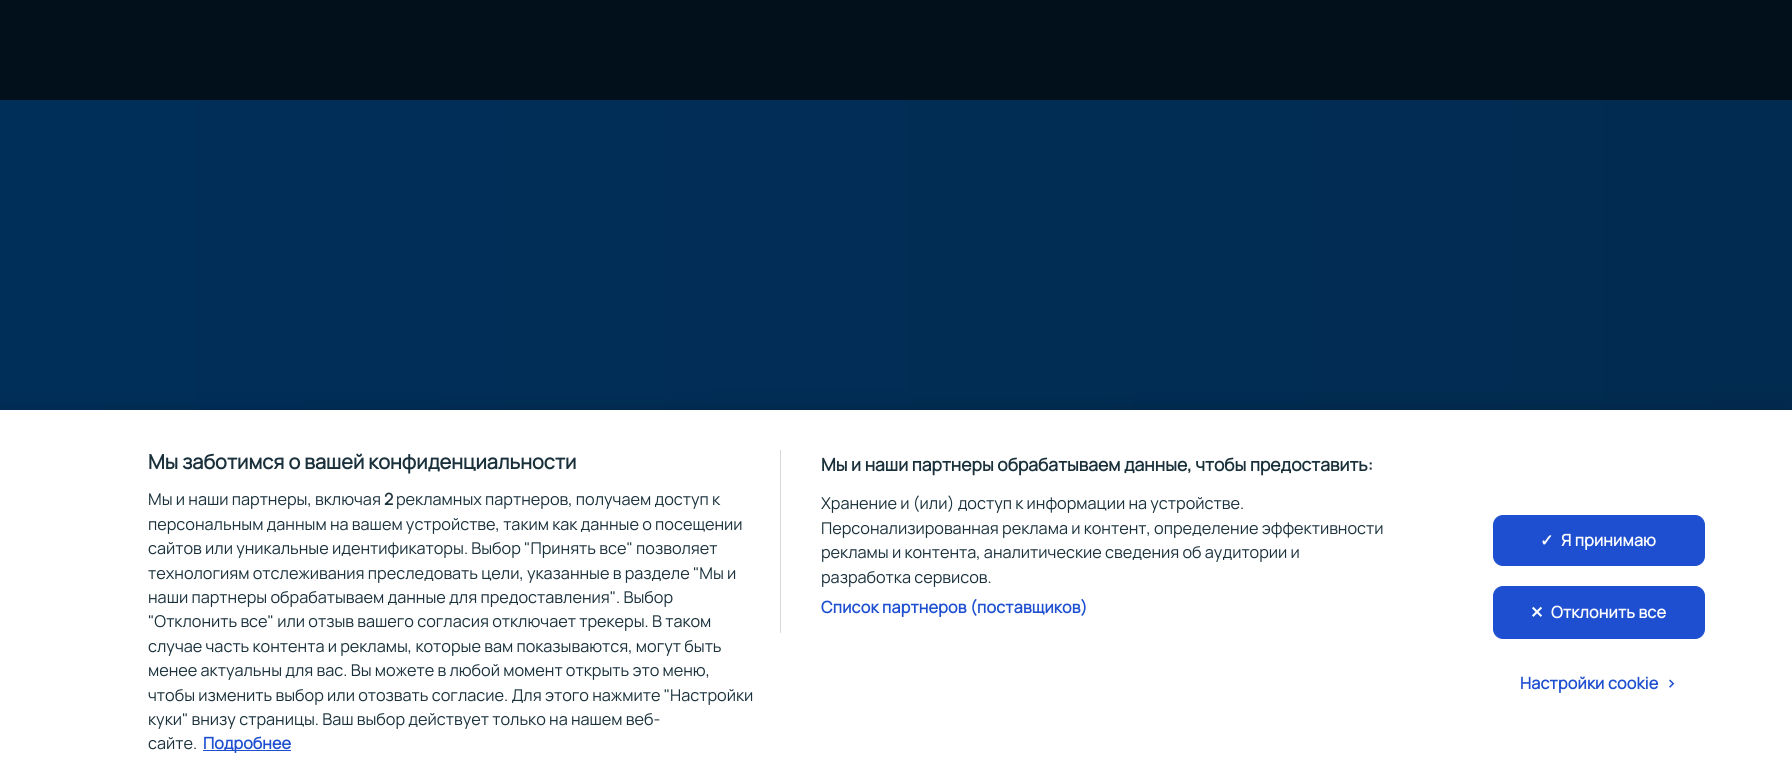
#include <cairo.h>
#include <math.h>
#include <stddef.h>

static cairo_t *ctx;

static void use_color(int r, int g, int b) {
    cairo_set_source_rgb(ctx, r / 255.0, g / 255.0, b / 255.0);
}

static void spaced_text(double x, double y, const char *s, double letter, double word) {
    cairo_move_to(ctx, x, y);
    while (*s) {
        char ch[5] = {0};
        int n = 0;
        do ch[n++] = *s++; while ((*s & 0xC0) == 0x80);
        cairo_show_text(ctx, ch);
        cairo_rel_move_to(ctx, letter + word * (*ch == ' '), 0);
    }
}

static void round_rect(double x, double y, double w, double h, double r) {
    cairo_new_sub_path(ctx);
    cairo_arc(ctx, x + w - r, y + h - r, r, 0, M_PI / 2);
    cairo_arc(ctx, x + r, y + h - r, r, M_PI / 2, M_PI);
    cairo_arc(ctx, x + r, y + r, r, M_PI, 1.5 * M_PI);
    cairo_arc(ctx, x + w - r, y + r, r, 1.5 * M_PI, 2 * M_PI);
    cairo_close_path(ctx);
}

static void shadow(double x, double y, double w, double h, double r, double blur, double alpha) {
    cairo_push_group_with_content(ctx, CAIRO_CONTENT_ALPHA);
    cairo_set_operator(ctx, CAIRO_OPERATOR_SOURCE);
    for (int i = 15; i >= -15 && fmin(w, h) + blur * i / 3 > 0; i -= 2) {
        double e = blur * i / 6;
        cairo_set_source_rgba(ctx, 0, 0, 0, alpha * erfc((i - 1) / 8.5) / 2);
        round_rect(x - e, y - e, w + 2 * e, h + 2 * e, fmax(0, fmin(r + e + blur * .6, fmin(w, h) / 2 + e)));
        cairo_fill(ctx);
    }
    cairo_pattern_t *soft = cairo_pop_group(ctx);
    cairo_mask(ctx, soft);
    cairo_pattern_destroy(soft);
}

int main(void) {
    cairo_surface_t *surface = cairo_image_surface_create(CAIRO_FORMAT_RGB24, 1792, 784);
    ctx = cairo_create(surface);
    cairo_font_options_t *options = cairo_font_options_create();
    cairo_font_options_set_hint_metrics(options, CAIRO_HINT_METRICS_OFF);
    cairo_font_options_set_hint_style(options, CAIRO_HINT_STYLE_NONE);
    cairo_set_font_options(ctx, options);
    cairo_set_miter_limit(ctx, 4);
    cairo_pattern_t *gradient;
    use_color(255, 255, 255);
    cairo_paint(ctx);
    use_color(2, 16, 28);
    cairo_rectangle(ctx, 0, 0, 1792, 100);
    cairo_fill(ctx);
    gradient = cairo_pattern_create_linear(0, 228, 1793, 228);
    cairo_pattern_add_color_stop_rgba(gradient, 0, 0, 0.184, 0.353, 1);
    cairo_pattern_add_color_stop_rgba(gradient, 1, 0.008, 0.169, 0.318, 1);
    cairo_set_source(ctx, gradient);
    cairo_pattern_destroy(gradient);
    cairo_rectangle(ctx, 0, 100, 1792, 310);
    cairo_fill(ctx);
    use_color(0, 0, 0);
    shadow(0, 410, 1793, 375, 0, 11, 0.2);
    use_color(255, 255, 255);
    cairo_rectangle(ctx, 0, 410, 1792, 374);
    cairo_fill(ctx);
    cairo_select_font_face(ctx, "Manrope", CAIRO_FONT_SLANT_NORMAL, CAIRO_FONT_WEIGHT_BOLD);
    cairo_set_font_size(ctx, 20);
    use_color(26, 49, 60);
    cairo_move_to(ctx, 148, 469);
    cairo_show_text(ctx, "Мы заботимся о вашей конфиденциальности");
    use_color(216, 216, 216);
    cairo_rectangle(ctx, 780, 450, 1, 183);
    cairo_fill(ctx);
    cairo_set_font_size(ctx, 17.6);
    use_color(26, 49, 60);
    cairo_move_to(ctx, 821, 471);
    cairo_show_text(ctx, "Мы и наши партнеры обрабатываем данные, чтобы предоставить:");
    cairo_select_font_face(ctx, "Manrope", CAIRO_FONT_SLANT_NORMAL, CAIRO_FONT_WEIGHT_NORMAL);
    cairo_set_font_size(ctx, 16.25);
    cairo_move_to(ctx, 821, 509);
    cairo_show_text(ctx, "Хранение и (или) доступ к информации на устройстве.");
    cairo_move_to(ctx, 821, 534);
    cairo_show_text(ctx, "Персонализированная реклама и контент, определение эффективности");
    cairo_move_to(ctx, 821, 558);
    cairo_show_text(ctx, "рекламы и контента, аналитические сведения об аудитории и");
    cairo_move_to(ctx, 821, 583);
    cairo_show_text(ctx, "разработка сервисов.");
    cairo_select_font_face(ctx, "Manrope", CAIRO_FONT_SLANT_NORMAL, CAIRO_FONT_WEIGHT_BOLD);
    use_color(30, 79, 208);
    spaced_text(821, 613, "Список партнеров (поставщиков)", 0.15, 0);
    cairo_select_font_face(ctx, "Manrope", CAIRO_FONT_SLANT_NORMAL, CAIRO_FONT_WEIGHT_NORMAL);
    use_color(26, 49, 60);
    cairo_move_to(ctx, 148, 505);
    cairo_show_text(ctx, "Мы и наши партнеры, включая");
    cairo_select_font_face(ctx, "Manrope", CAIRO_FONT_SLANT_NORMAL, CAIRO_FONT_WEIGHT_BOLD);
    cairo_move_to(ctx, 384, 505);
    cairo_show_text(ctx, "2");
    cairo_select_font_face(ctx, "Manrope", CAIRO_FONT_SLANT_NORMAL, CAIRO_FONT_WEIGHT_NORMAL);
    cairo_move_to(ctx, 396, 505);
    cairo_show_text(ctx, "рекламных партнеров, получаем доступ к");
    cairo_move_to(ctx, 148, 530);
    cairo_show_text(ctx, "персональным данным на вашем устройстве, таким как данные о посещении");
    cairo_move_to(ctx, 148, 554);
    cairo_show_text(ctx, "сайтов или уникальные идентификаторы. Выбор \"Принять все\" позволяет");
    cairo_move_to(ctx, 148, 579);
    cairo_show_text(ctx, "технологиям отслеживания преследовать цели, указанные в разделе \"Мы и");
    cairo_move_to(ctx, 148, 603);
    cairo_show_text(ctx, "наши партнеры обрабатываем данные для предоставления\". Выбор");
    cairo_move_to(ctx, 148, 627);
    cairo_show_text(ctx, "\"Отклонить все\" или отзыв вашего согласия отключает трекеры. В таком");
    cairo_move_to(ctx, 148, 652);
    cairo_show_text(ctx, "случае часть контента и рекламы, которые вам показываются, могут быть");
    cairo_move_to(ctx, 148, 676);
    cairo_show_text(ctx, "менее актуальны для вас. Вы можете в любой момент открыть это меню,");
    cairo_move_to(ctx, 148, 701);
    cairo_show_text(ctx, "чтобы изменить выбор или отозвать согласие. Для этого нажмите \"Настройки");
    cairo_move_to(ctx, 148, 725);
    cairo_show_text(ctx, "куки\" внизу страницы. Ваш выбор действует только на нашем веб-");
    cairo_move_to(ctx, 148, 749);
    cairo_show_text(ctx, "сайте.");
    use_color(30, 79, 208);
    cairo_rectangle(ctx, 203, 750, 88, 1);
    cairo_fill(ctx);
    cairo_select_font_face(ctx, "Manrope", CAIRO_FONT_SLANT_NORMAL, CAIRO_FONT_WEIGHT_BOLD);
    cairo_move_to(ctx, 203, 749);
    cairo_show_text(ctx, "Подробнее");
    round_rect(1493.5, 515.5, 211, 50, 9.5);
    cairo_fill_preserve(ctx);
    cairo_set_line_width(ctx, 1);
    cairo_stroke(ctx);
    cairo_select_font_face(ctx, "DejaVu Sans", CAIRO_FONT_SLANT_NORMAL, CAIRO_FONT_WEIGHT_BOLD);
    use_color(255, 255, 255);
    spaced_text(1540, 546, "✓", 0.15, 0);
    cairo_select_font_face(ctx, "Manrope", CAIRO_FONT_SLANT_NORMAL, CAIRO_FONT_WEIGHT_BOLD);
    spaced_text(1561, 546, "Я принимаю", 0.15, 0);
    use_color(30, 79, 208);
    round_rect(1493.5, 586.5, 211, 52, 9.5);
    cairo_fill_preserve(ctx);
    cairo_stroke(ctx);
    cairo_select_font_face(ctx, "DejaVu Sans", CAIRO_FONT_SLANT_NORMAL, CAIRO_FONT_WEIGHT_BOLD);
    use_color(255, 255, 255);
    spaced_text(1530, 618, "✕", 0.15, 0);
    cairo_select_font_face(ctx, "Manrope", CAIRO_FONT_SLANT_NORMAL, CAIRO_FONT_WEIGHT_BOLD);
    spaced_text(1551, 618, "Отклонить все", 0.15, 0);
    use_color(30, 79, 208);
    spaced_text(1520, 689, "Настройки cookie", 0.15, 0);
    spaced_text(1666, 689, ">", 0.15, 0);
    cairo_surface_write_to_png(surface, "result.png");
    cairo_font_options_destroy(options);
    cairo_destroy(ctx);
    cairo_surface_destroy(surface);
    return 0;
}
